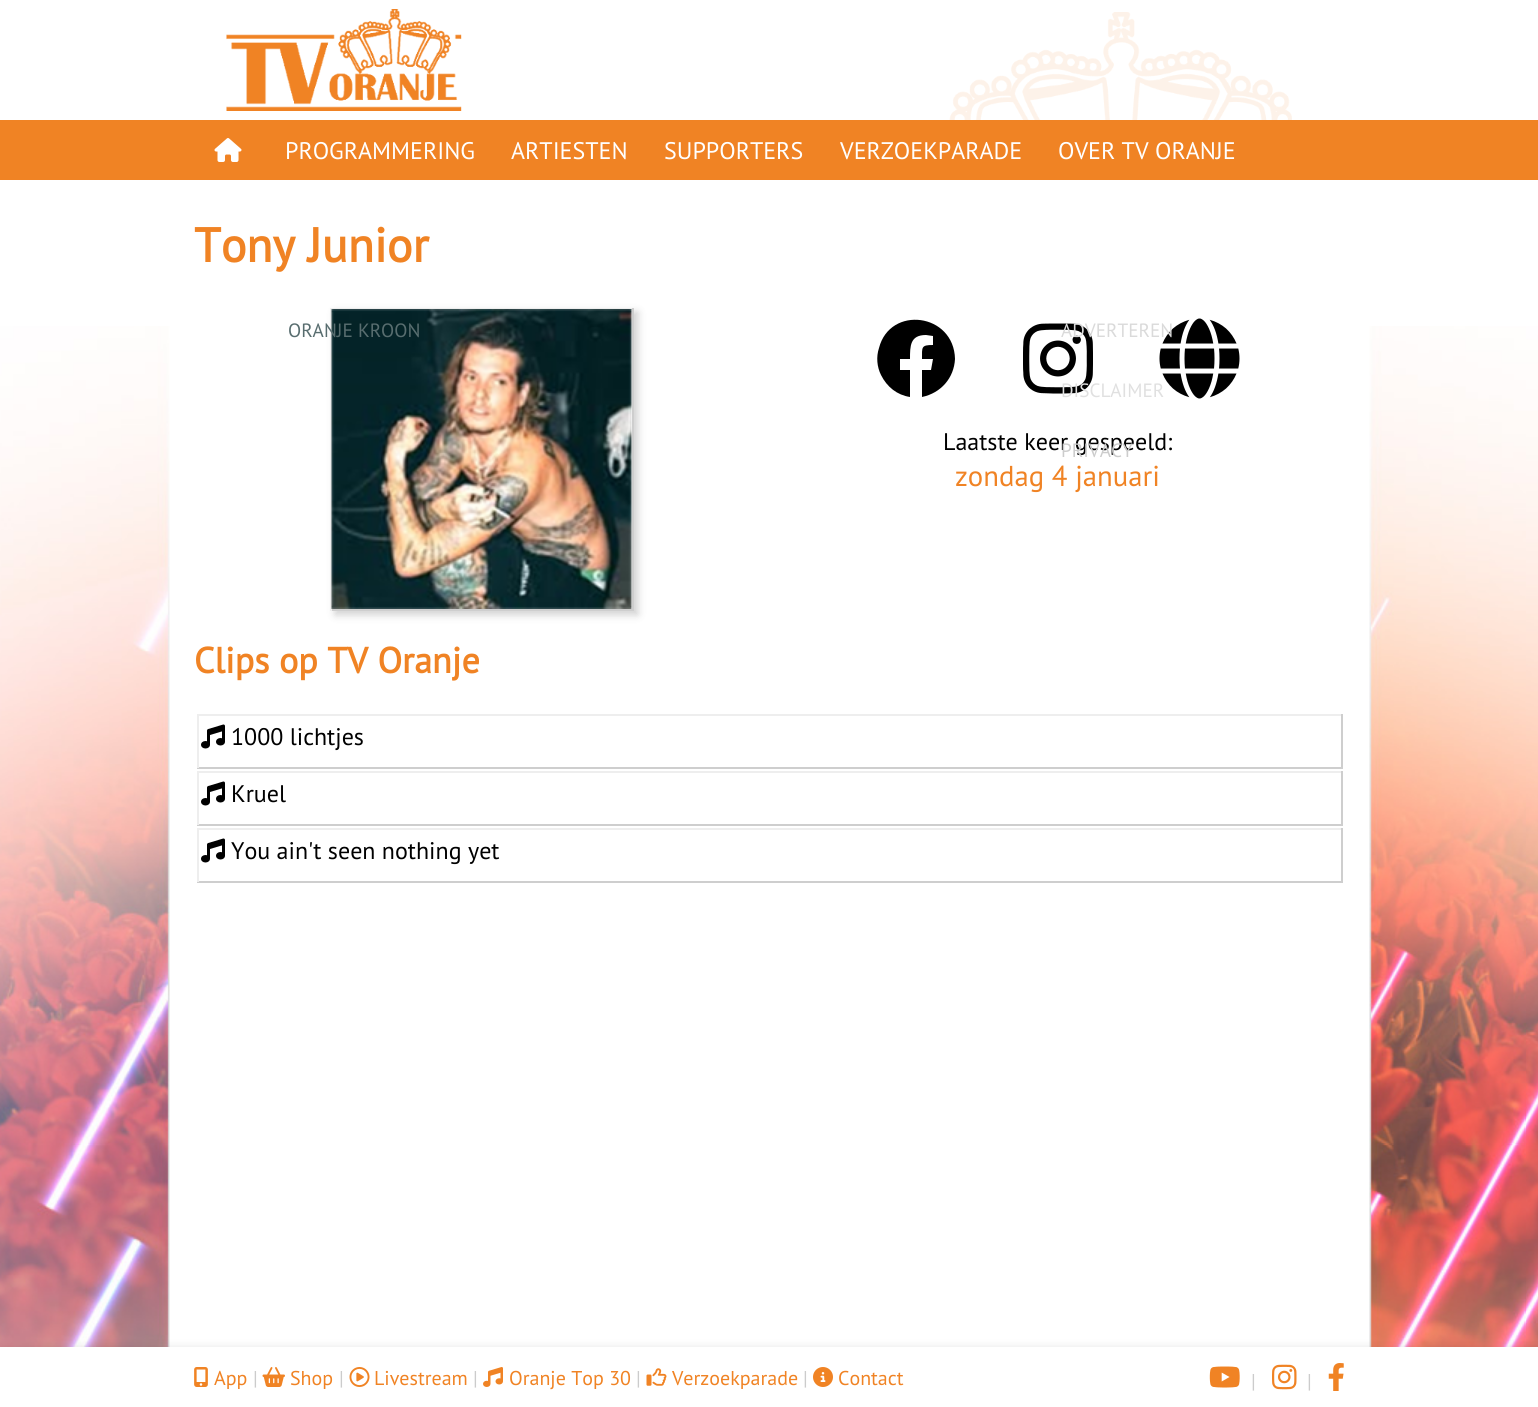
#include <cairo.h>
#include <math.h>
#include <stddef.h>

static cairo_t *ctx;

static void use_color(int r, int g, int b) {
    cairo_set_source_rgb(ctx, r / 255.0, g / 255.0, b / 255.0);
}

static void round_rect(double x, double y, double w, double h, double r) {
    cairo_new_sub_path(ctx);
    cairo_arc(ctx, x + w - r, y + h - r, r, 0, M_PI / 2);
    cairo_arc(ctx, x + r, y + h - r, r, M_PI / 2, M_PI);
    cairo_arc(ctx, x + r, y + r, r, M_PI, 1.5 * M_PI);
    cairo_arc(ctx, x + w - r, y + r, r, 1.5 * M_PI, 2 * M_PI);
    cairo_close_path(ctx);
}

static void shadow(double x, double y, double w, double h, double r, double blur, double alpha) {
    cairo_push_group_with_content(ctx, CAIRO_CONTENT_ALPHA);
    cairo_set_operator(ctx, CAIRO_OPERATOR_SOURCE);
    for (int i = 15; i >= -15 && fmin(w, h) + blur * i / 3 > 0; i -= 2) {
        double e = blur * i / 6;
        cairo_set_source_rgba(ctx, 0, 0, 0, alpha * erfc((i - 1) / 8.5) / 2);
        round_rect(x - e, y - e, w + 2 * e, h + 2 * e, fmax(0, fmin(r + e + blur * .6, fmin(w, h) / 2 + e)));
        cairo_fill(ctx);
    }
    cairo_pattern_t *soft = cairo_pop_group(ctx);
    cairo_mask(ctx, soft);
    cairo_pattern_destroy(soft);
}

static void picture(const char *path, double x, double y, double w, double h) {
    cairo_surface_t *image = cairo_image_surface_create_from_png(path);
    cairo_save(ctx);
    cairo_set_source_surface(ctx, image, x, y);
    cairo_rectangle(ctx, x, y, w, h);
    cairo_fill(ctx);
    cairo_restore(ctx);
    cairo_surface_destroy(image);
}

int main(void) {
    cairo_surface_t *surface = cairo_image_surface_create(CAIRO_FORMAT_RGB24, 1538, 1407);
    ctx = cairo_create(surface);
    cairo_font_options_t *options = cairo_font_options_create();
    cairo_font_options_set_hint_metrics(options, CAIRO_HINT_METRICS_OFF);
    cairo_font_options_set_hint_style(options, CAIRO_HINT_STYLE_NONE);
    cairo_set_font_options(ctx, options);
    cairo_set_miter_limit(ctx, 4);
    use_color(255, 255, 255);
    cairo_paint(ctx);
    picture("img1.png", 0, 326, 1538, 1021);
    picture("img2.png", 226, 9, 236, 102);
    picture("img3.png", 949, 12, 343, 108);
    use_color(240, 131, 36);
    cairo_rectangle(ctx, 0, 120, 1538, 60);
    cairo_fill(ctx);
    picture("img4.png", 214, 138, 28, 24);
    cairo_select_font_face(ctx, "PT Sans", CAIRO_FONT_SLANT_NORMAL, CAIRO_FONT_WEIGHT_NORMAL);
    cairo_set_font_size(ctx, 24);
    use_color(255, 255, 255);
    cairo_move_to(ctx, 285, 159);
    cairo_show_text(ctx, "PROGRAMMERING");
    cairo_save(ctx);
    cairo_set_fill_rule(ctx, CAIRO_FILL_RULE_EVEN_ODD);
    cairo_new_path(ctx);
    cairo_move_to(ctx, 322, 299);
    cairo_line_to(ctx, 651, 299);
    cairo_line_to(ctx, 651, 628);
    cairo_line_to(ctx, 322, 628);
    cairo_close_path(ctx);
    cairo_move_to(ctx, 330, 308);
    cairo_line_to(ctx, 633, 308);
    cairo_line_to(ctx, 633, 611);
    cairo_line_to(ctx, 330, 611);
    cairo_close_path(ctx);
    cairo_clip(ctx);
    use_color(0, 0, 0);
    shadow(335, 312, 303, 303, 0, 4, 0.18);
    cairo_restore(ctx);
    use_color(238, 238, 238);
    cairo_rectangle(ctx, 330, 308, 303, 2);
    cairo_fill(ctx);
    use_color(206, 206, 206);
    cairo_rectangle(ctx, 632, 308, 2, 303);
    cairo_fill(ctx);
    cairo_rectangle(ctx, 330, 609, 303, 2);
    cairo_fill(ctx);
    use_color(238, 238, 238);
    cairo_rectangle(ctx, 330, 308, 2, 303);
    cairo_fill(ctx);
    picture("img5.png", 331, 309, 301, 300);
    cairo_set_font_size(ctx, 19.25);
    use_color(88, 109, 111);
    cairo_move_to(ctx, 288, 337);
    cairo_show_text(ctx, "ORANJE KROON");
    cairo_set_font_size(ctx, 24);
    use_color(255, 255, 255);
    cairo_move_to(ctx, 511, 159);
    cairo_show_text(ctx, "ARTIESTEN");
    cairo_move_to(ctx, 664, 159);
    cairo_show_text(ctx, "SUPPORTERS");
    cairo_move_to(ctx, 840, 159);
    cairo_show_text(ctx, "VERZOEKPARADE");
    cairo_move_to(ctx, 1058, 159);
    cairo_show_text(ctx, "OVER TV ORANJE");
    picture("img6.png", 1023, 323, 70, 71);
    picture("img7.png", 1159, 318, 81, 81);
    cairo_set_font_size(ctx, 19.25);
    use_color(218, 218, 218);
    cairo_move_to(ctx, 1061, 337);
    cairo_show_text(ctx, "ADVERTEREN");
    use_color(224, 224, 224);
    cairo_move_to(ctx, 1061, 397);
    cairo_show_text(ctx, "DISCLAIMER");
    cairo_set_font_size(ctx, 24);
    use_color(0, 0, 0);
    cairo_move_to(ctx, 943, 450);
    cairo_show_text(ctx, "Laatste keer gespeeld:");
    cairo_set_font_size(ctx, 19.25);
    use_color(204, 204, 204);
    cairo_move_to(ctx, 1061, 457);
    cairo_show_text(ctx, "PRIVACY");
    cairo_select_font_face(ctx, "PT Sans", CAIRO_FONT_SLANT_NORMAL, CAIRO_FONT_WEIGHT_BOLD);
    cairo_set_font_size(ctx, 48);
    use_color(240, 131, 36);
    cairo_move_to(ctx, 194, 262);
    cairo_show_text(ctx, "Tony Junior");
    use_color(0, 0, 0);
    cairo_new_path(ctx);
    cairo_move_to(ctx, 955, 359);
    cairo_curve_to(ctx, 954, 313, 890, 305, 879, 348);
    cairo_curve_to(ctx, 876, 357, 877, 367, 881, 375);
    cairo_curve_to(ctx, 887, 387, 897, 395, 910, 397);
    cairo_line_to(ctx, 910, 370);
    cairo_line_to(ctx, 900, 370);
    cairo_line_to(ctx, 900, 359);
    cairo_line_to(ctx, 910, 359);
    cairo_curve_to(ctx, 910, 346, 910, 335, 926, 335);
    cairo_line_to(ctx, 933, 336);
    cairo_line_to(ctx, 933, 345);
    cairo_curve_to(ctx, 921, 345, 922, 347, 922, 359);
    cairo_line_to(ctx, 933, 359);
    cairo_line_to(ctx, 931, 370);
    cairo_line_to(ctx, 922, 370);
    cairo_line_to(ctx, 922, 397);
    cairo_curve_to(ctx, 941, 393, 954, 378, 955, 359);
    cairo_close_path(ctx);
    cairo_fill(ctx);
    cairo_select_font_face(ctx, "PT Sans", CAIRO_FONT_SLANT_NORMAL, CAIRO_FONT_WEIGHT_NORMAL);
    cairo_set_font_size(ctx, 28.75);
    use_color(240, 131, 36);
    cairo_move_to(ctx, 955, 486);
    cairo_show_text(ctx, "zondag 4 januari");
    cairo_select_font_face(ctx, "PT Sans", CAIRO_FONT_SLANT_NORMAL, CAIRO_FONT_WEIGHT_BOLD);
    cairo_set_font_size(ctx, 36);
    cairo_move_to(ctx, 194, 673);
    cairo_show_text(ctx, "Clips op TV Oranje");
    use_color(238, 238, 238);
    cairo_rectangle(ctx, 197, 714, 1146, 2);
    cairo_fill(ctx);
    use_color(206, 206, 206);
    cairo_rectangle(ctx, 1341, 714, 2, 54);
    cairo_fill(ctx);
    cairo_rectangle(ctx, 197, 767, 1146, 2);
    cairo_fill(ctx);
    use_color(238, 238, 238);
    cairo_rectangle(ctx, 197, 714, 2, 54);
    cairo_fill(ctx);
    picture("img8.png", 201, 724, 24, 25);
    cairo_select_font_face(ctx, "PT Sans", CAIRO_FONT_SLANT_NORMAL, CAIRO_FONT_WEIGHT_NORMAL);
    cairo_set_font_size(ctx, 24);
    use_color(0, 0, 0);
    cairo_move_to(ctx, 231, 745);
    cairo_show_text(ctx, "1000 lichtjes");
    use_color(238, 238, 238);
    cairo_rectangle(ctx, 197, 771, 1146, 2);
    cairo_fill(ctx);
    use_color(206, 206, 206);
    cairo_rectangle(ctx, 1341, 771, 2, 54);
    cairo_fill(ctx);
    cairo_rectangle(ctx, 197, 824, 1146, 2);
    cairo_fill(ctx);
    use_color(238, 238, 238);
    cairo_rectangle(ctx, 197, 771, 2, 54);
    cairo_fill(ctx);
    picture("img8.png", 201, 781, 24, 25);
    use_color(0, 0, 0);
    cairo_move_to(ctx, 231, 802);
    cairo_show_text(ctx, "Kruel");
    use_color(238, 238, 238);
    cairo_rectangle(ctx, 197, 828, 1146, 2);
    cairo_fill(ctx);
    use_color(206, 206, 206);
    cairo_rectangle(ctx, 1341, 828, 2, 54);
    cairo_fill(ctx);
    cairo_rectangle(ctx, 197, 881, 1146, 2);
    cairo_fill(ctx);
    use_color(238, 238, 238);
    cairo_rectangle(ctx, 197, 828, 2, 54);
    cairo_fill(ctx);
    picture("img8.png", 201, 838, 24, 25);
    use_color(0, 0, 0);
    cairo_move_to(ctx, 231, 859);
    cairo_show_text(ctx, "You ain't seen nothing yet");
    use_color(0, 0, 0);
    shadow(0, 1347, 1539, 60, 0, 4.5, 0.1);
    use_color(255, 255, 255);
    cairo_rectangle(ctx, 0, 1347, 1538, 60);
    cairo_fill(ctx);
    picture("img9.png", 194, 1367, 14, 20);
    cairo_set_font_size(ctx, 20);
    use_color(240, 131, 36);
    cairo_move_to(ctx, 214, 1385);
    cairo_show_text(ctx, "App");
    use_color(204, 204, 204);
    cairo_move_to(ctx, 253, 1385);
    cairo_show_text(ctx, "|");
    picture("img10.png", 262, 1367, 23, 20);
    use_color(240, 131, 36);
    cairo_move_to(ctx, 290, 1385);
    cairo_show_text(ctx, "Shop");
    use_color(204, 204, 204);
    cairo_move_to(ctx, 339, 1385);
    cairo_show_text(ctx, "|");
    picture("img11.png", 349, 1367, 21, 20);
    use_color(240, 131, 36);
    cairo_move_to(ctx, 374, 1385);
    cairo_show_text(ctx, "Livestream");
    use_color(204, 204, 204);
    cairo_move_to(ctx, 473, 1385);
    cairo_show_text(ctx, "|");
    picture("img12.png", 483, 1367, 20, 20);
    use_color(240, 131, 36);
    cairo_move_to(ctx, 509, 1385);
    cairo_show_text(ctx, "Oranje Top 30");
    use_color(204, 204, 204);
    cairo_move_to(ctx, 636, 1385);
    cairo_show_text(ctx, "|");
    picture("img13.png", 646, 1368, 21, 18);
    use_color(240, 131, 36);
    cairo_move_to(ctx, 672, 1385);
    cairo_show_text(ctx, "Verzoekparade");
    use_color(204, 204, 204);
    cairo_move_to(ctx, 803, 1385);
    cairo_show_text(ctx, "|");
    picture("img14.png", 813, 1367, 20, 20);
    use_color(240, 131, 36);
    cairo_move_to(ctx, 838, 1385);
    cairo_show_text(ctx, "Contact");
    picture("img15.png", 1209, 1366, 31, 22);
    use_color(204, 204, 204);
    cairo_move_to(ctx, 1251, 1388);
    cairo_show_text(ctx, "|");
    picture("img16.png", 1272, 1364, 25, 26);
    cairo_move_to(ctx, 1307, 1388);
    cairo_show_text(ctx, "|");
    picture("img17.png", 1328, 1363, 16, 28);
    cairo_surface_write_to_png(surface, "result.png");
    cairo_font_options_destroy(options);
    cairo_destroy(ctx);
    cairo_surface_destroy(surface);
    return 0;
}
